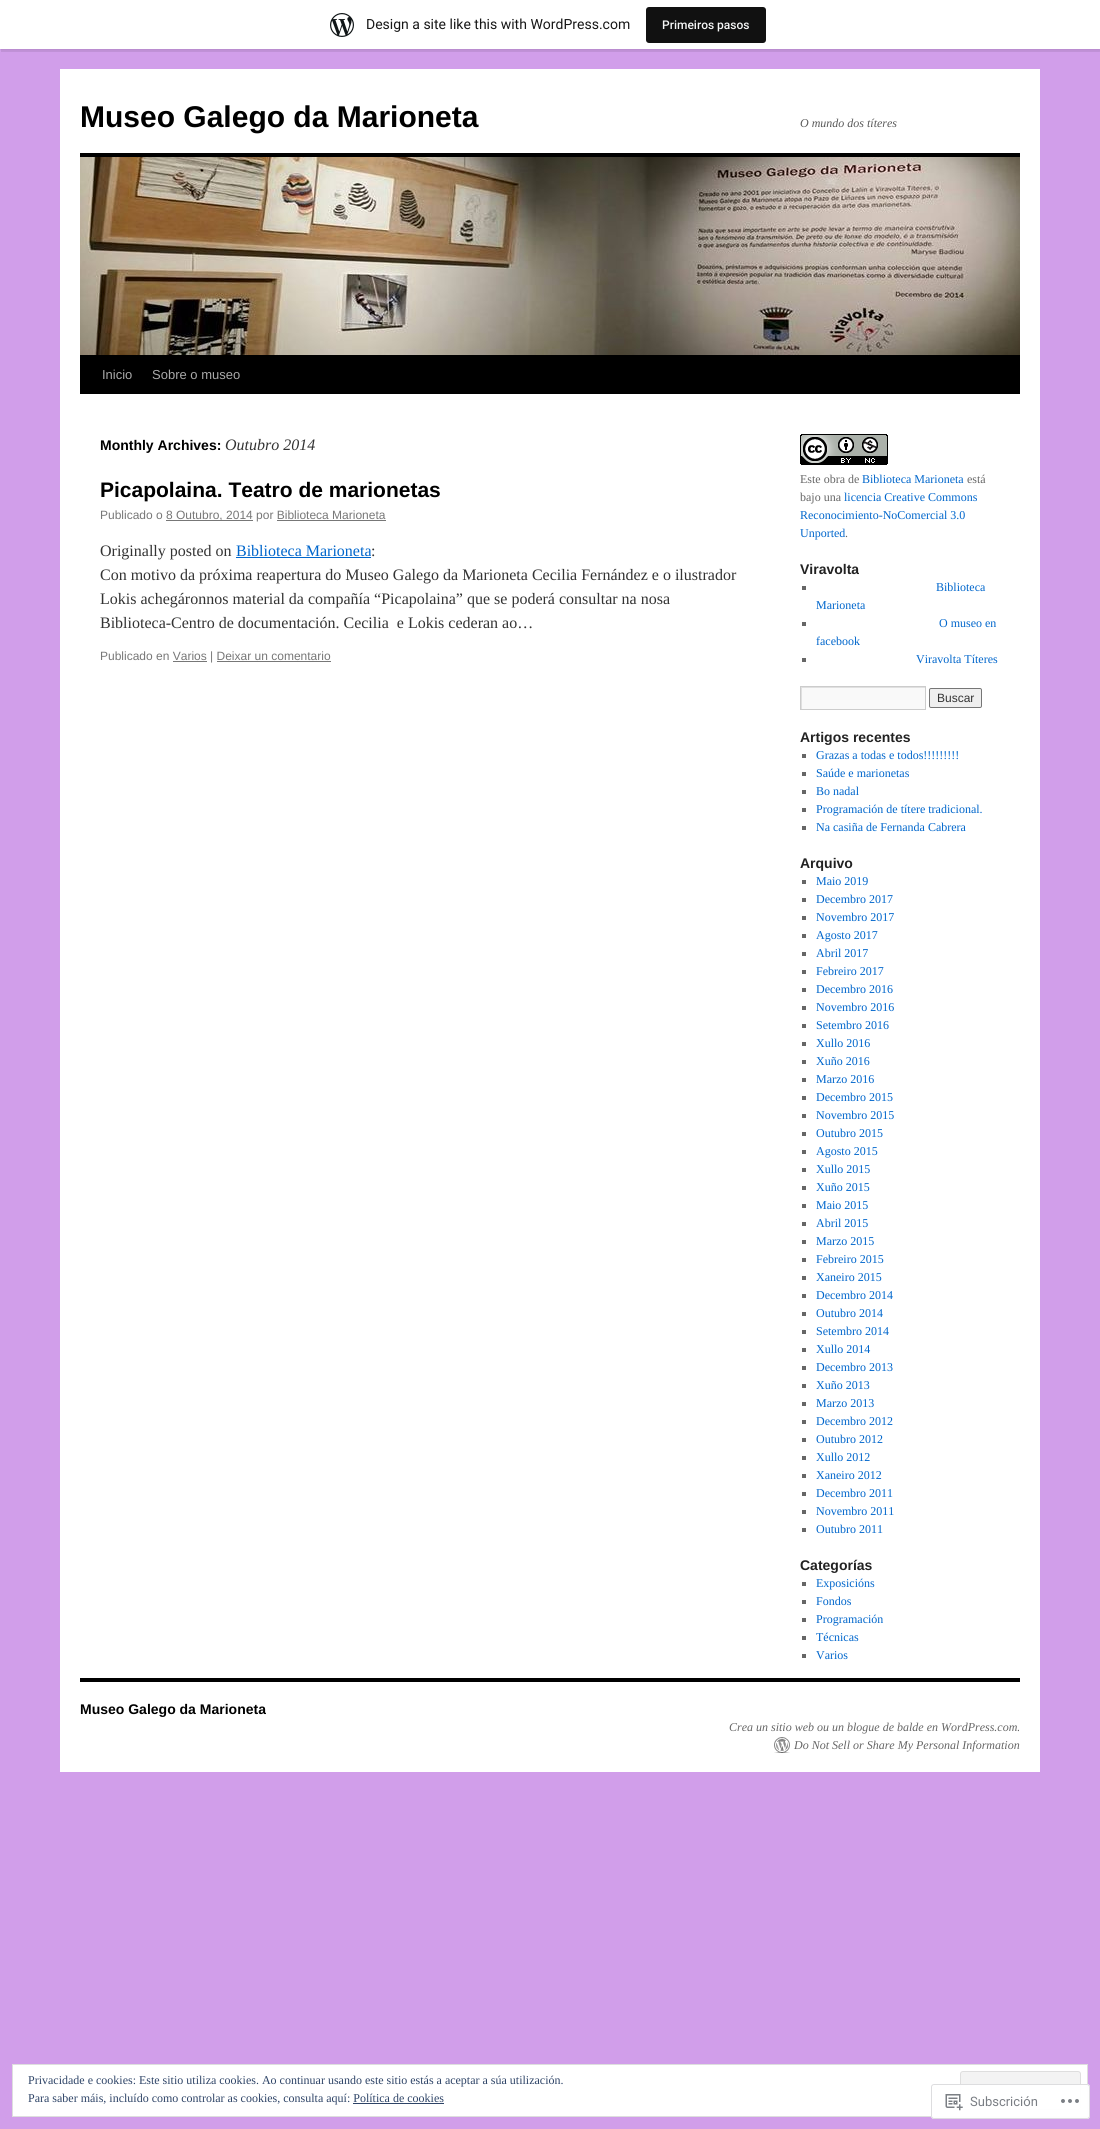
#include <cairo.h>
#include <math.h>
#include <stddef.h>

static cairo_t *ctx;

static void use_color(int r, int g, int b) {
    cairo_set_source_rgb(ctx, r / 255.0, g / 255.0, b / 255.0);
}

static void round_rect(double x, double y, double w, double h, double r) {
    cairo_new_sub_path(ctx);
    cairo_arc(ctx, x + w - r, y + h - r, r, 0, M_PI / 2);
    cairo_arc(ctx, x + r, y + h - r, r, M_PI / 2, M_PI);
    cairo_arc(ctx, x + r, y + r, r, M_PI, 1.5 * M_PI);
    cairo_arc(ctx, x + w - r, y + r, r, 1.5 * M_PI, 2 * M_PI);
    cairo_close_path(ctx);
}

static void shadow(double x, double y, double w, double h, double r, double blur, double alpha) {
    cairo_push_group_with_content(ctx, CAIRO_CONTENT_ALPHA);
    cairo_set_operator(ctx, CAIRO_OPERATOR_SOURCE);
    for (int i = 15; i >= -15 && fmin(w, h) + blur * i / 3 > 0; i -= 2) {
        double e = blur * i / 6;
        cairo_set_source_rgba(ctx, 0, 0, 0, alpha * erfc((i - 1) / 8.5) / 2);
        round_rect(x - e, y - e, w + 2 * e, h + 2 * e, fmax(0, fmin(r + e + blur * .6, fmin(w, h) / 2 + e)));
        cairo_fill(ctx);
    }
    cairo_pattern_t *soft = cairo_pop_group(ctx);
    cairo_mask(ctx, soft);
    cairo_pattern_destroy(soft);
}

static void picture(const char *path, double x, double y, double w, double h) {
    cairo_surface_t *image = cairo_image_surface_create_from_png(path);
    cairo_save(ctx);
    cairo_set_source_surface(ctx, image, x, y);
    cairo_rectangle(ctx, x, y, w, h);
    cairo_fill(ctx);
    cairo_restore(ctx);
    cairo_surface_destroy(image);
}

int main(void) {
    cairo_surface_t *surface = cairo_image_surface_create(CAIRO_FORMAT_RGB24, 1100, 2129);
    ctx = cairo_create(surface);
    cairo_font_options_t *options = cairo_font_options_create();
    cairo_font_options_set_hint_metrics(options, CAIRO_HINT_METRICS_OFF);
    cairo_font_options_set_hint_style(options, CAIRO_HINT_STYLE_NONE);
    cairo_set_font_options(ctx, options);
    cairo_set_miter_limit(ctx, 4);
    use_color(209, 158, 234);
    cairo_paint(ctx);
    use_color(0, 0, 0);
    shadow(0, 1, 1100, 49, 0, 1, 0.05);
    cairo_set_source_rgba(ctx, 0, 0, 0, 0.08);
    cairo_new_path(ctx);
    cairo_move_to(ctx, 1, 49);
    cairo_line_to(ctx, 1, 52);
    cairo_line_to(ctx, 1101, 52);
    cairo_line_to(ctx, 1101, 3);
    cairo_line_to(ctx, 1100, 3);
    cairo_line_to(ctx, 1100, 49);
    cairo_close_path(ctx);
    cairo_fill(ctx);
    use_color(255, 255, 255);
    cairo_rectangle(ctx, 0, 0, 1100, 49);
    cairo_fill(ctx);
    picture("img1.png", 330, 13, 24, 24);
    cairo_select_font_face(ctx, "Roboto", CAIRO_FONT_SLANT_NORMAL, CAIRO_FONT_WEIGHT_NORMAL);
    cairo_set_font_size(ctx, 14);
    use_color(23, 23, 23);
    cairo_move_to(ctx, 366, 29);
    cairo_show_text(ctx, "Design a site like this with WordPress.com");
    use_color(17, 17, 17);
    round_rect(646, 7, 120, 36, 3);
    cairo_fill(ctx);
    cairo_select_font_face(ctx, "Roboto Medium", CAIRO_FONT_SLANT_NORMAL, CAIRO_FONT_WEIGHT_NORMAL);
    cairo_set_font_size(ctx, 12);
    use_color(246, 247, 247);
    cairo_move_to(ctx, 662, 29);
    cairo_show_text(ctx, "Primeiros pasos");
    use_color(255, 255, 255);
    cairo_rectangle(ctx, 60, 69, 980, 1703);
    cairo_fill(ctx);
    cairo_select_font_face(ctx, "Liberation Sans", CAIRO_FONT_SLANT_NORMAL, CAIRO_FONT_WEIGHT_BOLD);
    cairo_set_font_size(ctx, 30);
    use_color(0, 0, 0);
    cairo_move_to(ctx, 80, 127);
    cairo_show_text(ctx, "Museo Galego da Marioneta");
    cairo_select_font_face(ctx, "Liberation Serif", CAIRO_FONT_SLANT_ITALIC, CAIRO_FONT_WEIGHT_NORMAL);
    cairo_set_font_size(ctx, 12);
    use_color(89, 89, 89);
    cairo_move_to(ctx, 800, 127);
    cairo_show_text(ctx, "O mundo dos títeres");
    use_color(0, 0, 0);
    cairo_rectangle(ctx, 80, 153, 940, 4);
    cairo_fill(ctx);
    cairo_rectangle(ctx, 80, 355, 940, 39);
    cairo_fill(ctx);
    picture("img2.png", 80, 157, 940, 198);
    cairo_select_font_face(ctx, "Liberation Sans", CAIRO_FONT_SLANT_NORMAL, CAIRO_FONT_WEIGHT_NORMAL);
    cairo_set_font_size(ctx, 13);
    use_color(170, 170, 170);
    cairo_move_to(ctx, 102, 379);
    cairo_show_text(ctx, "Inicio");
    cairo_move_to(ctx, 152, 379);
    cairo_show_text(ctx, "Sobre o museo");
    cairo_select_font_face(ctx, "Liberation Sans", CAIRO_FONT_SLANT_NORMAL, CAIRO_FONT_WEIGHT_BOLD);
    cairo_set_font_size(ctx, 14);
    use_color(0, 0, 0);
    cairo_move_to(ctx, 100, 450);
    cairo_show_text(ctx, "Monthly Archives:");
    cairo_select_font_face(ctx, "Liberation Serif", CAIRO_FONT_SLANT_ITALIC, CAIRO_FONT_WEIGHT_NORMAL);
    cairo_set_font_size(ctx, 16);
    use_color(51, 51, 51);
    cairo_move_to(ctx, 225, 450);
    cairo_show_text(ctx, "Outubro 2014");
    cairo_select_font_face(ctx, "Liberation Sans", CAIRO_FONT_SLANT_NORMAL, CAIRO_FONT_WEIGHT_BOLD);
    cairo_set_font_size(ctx, 21);
    use_color(0, 0, 0);
    cairo_move_to(ctx, 100, 497);
    cairo_show_text(ctx, "Picapolaina. Teatro de marionetas");
    cairo_select_font_face(ctx, "Liberation Sans", CAIRO_FONT_SLANT_NORMAL, CAIRO_FONT_WEIGHT_NORMAL);
    cairo_set_font_size(ctx, 12);
    use_color(119, 119, 119);
    cairo_move_to(ctx, 100, 519);
    cairo_show_text(ctx, "Publicado o");
    cairo_rectangle(ctx, 166, 520, 87, 1);
    cairo_fill(ctx);
    cairo_move_to(ctx, 166, 519);
    cairo_show_text(ctx, "8 Outubro, 2014 por Biblioteca Marioneta");
    cairo_rectangle(ctx, 277, 520, 109, 1);
    cairo_fill(ctx);
    cairo_select_font_face(ctx, "Liberation Serif", CAIRO_FONT_SLANT_NORMAL, CAIRO_FONT_WEIGHT_NORMAL);
    cairo_set_font_size(ctx, 16);
    use_color(51, 51, 51);
    cairo_move_to(ctx, 100, 556);
    cairo_show_text(ctx, "Originally posted on");
    use_color(0, 102, 204);
    cairo_move_to(ctx, 236, 556);
    cairo_show_text(ctx, "Biblioteca Marioneta");
    cairo_rectangle(ctx, 236, 557, 135, 1);
    cairo_fill(ctx);
    use_color(51, 51, 51);
    cairo_move_to(ctx, 371, 556);
    cairo_show_text(ctx, ":");
    cairo_move_to(ctx, 100, 580);
    cairo_show_text(ctx, "Con motivo da próxima reapertura do Museo Galego da Marioneta Cecilia Fernández e o ilustrador");
    cairo_move_to(ctx, 100, 604);
    cairo_show_text(ctx, "Lokis achegáronnos material da compañía “Picapolaina” que se poderá consultar na nosa");
    cairo_move_to(ctx, 100, 628);
    cairo_show_text(ctx, "Biblioteca-Centro de documentación. Cecilia  e Lokis cederan ao…");
    cairo_select_font_face(ctx, "Liberation Sans", CAIRO_FONT_SLANT_NORMAL, CAIRO_FONT_WEIGHT_NORMAL);
    cairo_set_font_size(ctx, 12);
    use_color(119, 119, 119);
    cairo_move_to(ctx, 100, 660);
    cairo_show_text(ctx, "Publicado en Varios | Deixar un comentario");
    cairo_rectangle(ctx, 173, 661, 34, 1);
    cairo_fill(ctx);
    cairo_rectangle(ctx, 217, 661, 114, 1);
    cairo_fill(ctx);
    picture("img3.png", 800, 434, 88, 31);
    cairo_select_font_face(ctx, "Liberation Serif", CAIRO_FONT_SLANT_NORMAL, CAIRO_FONT_WEIGHT_NORMAL);
    use_color(102, 102, 102);
    cairo_move_to(ctx, 800, 483);
    cairo_show_text(ctx, "Este obra de");
    use_color(0, 102, 204);
    cairo_move_to(ctx, 862, 483);
    cairo_show_text(ctx, "Biblioteca Marioneta");
    use_color(102, 102, 102);
    cairo_move_to(ctx, 967, 483);
    cairo_show_text(ctx, "está");
    cairo_move_to(ctx, 800, 501);
    cairo_show_text(ctx, "bajo una");
    use_color(0, 102, 204);
    cairo_move_to(ctx, 844, 501);
    cairo_show_text(ctx, "licencia Creative Commons");
    cairo_move_to(ctx, 800, 519);
    cairo_show_text(ctx, "Reconocimiento-NoComercial 3.0");
    cairo_move_to(ctx, 800, 537);
    cairo_show_text(ctx, "Unported");
    use_color(102, 102, 102);
    cairo_move_to(ctx, 845, 537);
    cairo_show_text(ctx, ".");
    cairo_select_font_face(ctx, "Liberation Sans", CAIRO_FONT_SLANT_NORMAL, CAIRO_FONT_WEIGHT_BOLD);
    cairo_set_font_size(ctx, 14);
    use_color(34, 34, 34);
    cairo_move_to(ctx, 800, 574);
    cairo_show_text(ctx, "Viravolta");
    use_color(102, 102, 102);
    cairo_rectangle(ctx, 802, 586, 4, 4);
    cairo_fill(ctx);
    cairo_select_font_face(ctx, "Liberation Serif", CAIRO_FONT_SLANT_NORMAL, CAIRO_FONT_WEIGHT_NORMAL);
    cairo_set_font_size(ctx, 12);
    use_color(0, 102, 204);
    cairo_move_to(ctx, 936, 591);
    cairo_show_text(ctx, "Biblioteca");
    cairo_move_to(ctx, 816, 609);
    cairo_show_text(ctx, "Marioneta");
    use_color(102, 102, 102);
    cairo_rectangle(ctx, 802, 622, 4, 4);
    cairo_fill(ctx);
    use_color(0, 102, 204);
    cairo_move_to(ctx, 939, 627);
    cairo_show_text(ctx, "O museo en");
    cairo_move_to(ctx, 816, 645);
    cairo_show_text(ctx, "facebook");
    use_color(102, 102, 102);
    cairo_rectangle(ctx, 802, 658, 4, 4);
    cairo_fill(ctx);
    use_color(0, 102, 204);
    cairo_move_to(ctx, 916, 663);
    cairo_show_text(ctx, "Viravolta Títeres");
    use_color(249, 249, 249);
    cairo_rectangle(ctx, 802, 688, 123, 21);
    cairo_fill(ctx);
    cairo_save(ctx);
    cairo_rectangle(ctx, 801, 687, 124, 22);
    cairo_clip(ctx);
    use_color(224, 224, 224);
    cairo_set_fill_rule(ctx, CAIRO_FILL_RULE_EVEN_ODD);
    cairo_new_path(ctx);
    cairo_move_to(ctx, 702, 588);
    cairo_line_to(ctx, 1024, 588);
    cairo_line_to(ctx, 1024, 808);
    cairo_line_to(ctx, 702, 808);
    cairo_close_path(ctx);
    cairo_move_to(ctx, 802, 688);
    cairo_line_to(ctx, 926, 688);
    cairo_line_to(ctx, 926, 710);
    cairo_line_to(ctx, 802, 710);
    cairo_close_path(ctx);
    cairo_fill(ctx);
    cairo_restore(ctx);
    cairo_rectangle(ctx, 800.5, 686.5, 125, 23);
    use_color(204, 204, 204);
    cairo_set_line_width(ctx, 1);
    cairo_stroke(ctx);
    use_color(239, 239, 239);
    round_rect(929.5, 688.5, 52, 19, 1.5);
    cairo_fill_preserve(ctx);
    use_color(118, 118, 118);
    cairo_stroke(ctx);
    cairo_select_font_face(ctx, "Liberation Sans", CAIRO_FONT_SLANT_NORMAL, CAIRO_FONT_WEIGHT_NORMAL);
    use_color(51, 51, 51);
    cairo_move_to(ctx, 937, 702);
    cairo_show_text(ctx, "Buscar");
    cairo_select_font_face(ctx, "Liberation Sans", CAIRO_FONT_SLANT_NORMAL, CAIRO_FONT_WEIGHT_BOLD);
    cairo_set_font_size(ctx, 14);
    use_color(34, 34, 34);
    cairo_move_to(ctx, 800, 742);
    cairo_show_text(ctx, "Artigos recentes");
    use_color(102, 102, 102);
    cairo_rectangle(ctx, 802, 754, 4, 4);
    cairo_fill(ctx);
    cairo_select_font_face(ctx, "Liberation Serif", CAIRO_FONT_SLANT_NORMAL, CAIRO_FONT_WEIGHT_NORMAL);
    cairo_set_font_size(ctx, 12);
    use_color(0, 102, 204);
    cairo_move_to(ctx, 816, 759);
    cairo_show_text(ctx, "Grazas a todas e todos!!!!!!!!!");
    use_color(102, 102, 102);
    cairo_rectangle(ctx, 802, 772, 4, 4);
    cairo_fill(ctx);
    use_color(0, 102, 204);
    cairo_move_to(ctx, 816, 777);
    cairo_show_text(ctx, "Saúde e marionetas");
    use_color(102, 102, 102);
    cairo_rectangle(ctx, 802, 790, 4, 4);
    cairo_fill(ctx);
    use_color(0, 102, 204);
    cairo_move_to(ctx, 816, 795);
    cairo_show_text(ctx, "Bo nadal");
    use_color(102, 102, 102);
    cairo_rectangle(ctx, 802, 808, 4, 4);
    cairo_fill(ctx);
    use_color(0, 102, 204);
    cairo_move_to(ctx, 816, 813);
    cairo_show_text(ctx, "Programación de títere tradicional.");
    use_color(102, 102, 102);
    cairo_rectangle(ctx, 802, 826, 4, 4);
    cairo_fill(ctx);
    use_color(0, 102, 204);
    cairo_move_to(ctx, 816, 831);
    cairo_show_text(ctx, "Na casiña de Fernanda Cabrera");
    cairo_select_font_face(ctx, "Liberation Sans", CAIRO_FONT_SLANT_NORMAL, CAIRO_FONT_WEIGHT_BOLD);
    cairo_set_font_size(ctx, 14);
    use_color(34, 34, 34);
    cairo_move_to(ctx, 800, 868);
    cairo_show_text(ctx, "Arquivo");
    use_color(102, 102, 102);
    cairo_rectangle(ctx, 802, 880, 4, 4);
    cairo_fill(ctx);
    cairo_select_font_face(ctx, "Liberation Serif", CAIRO_FONT_SLANT_NORMAL, CAIRO_FONT_WEIGHT_NORMAL);
    cairo_set_font_size(ctx, 12);
    use_color(0, 102, 204);
    cairo_move_to(ctx, 816, 885);
    cairo_show_text(ctx, "Maio 2019");
    use_color(102, 102, 102);
    cairo_rectangle(ctx, 802, 898, 4, 4);
    cairo_fill(ctx);
    use_color(0, 102, 204);
    cairo_move_to(ctx, 816, 903);
    cairo_show_text(ctx, "Decembro 2017");
    use_color(102, 102, 102);
    cairo_rectangle(ctx, 802, 916, 4, 4);
    cairo_fill(ctx);
    use_color(0, 102, 204);
    cairo_move_to(ctx, 816, 921);
    cairo_show_text(ctx, "Novembro 2017");
    use_color(102, 102, 102);
    cairo_rectangle(ctx, 802, 934, 4, 4);
    cairo_fill(ctx);
    use_color(0, 102, 204);
    cairo_move_to(ctx, 816, 939);
    cairo_show_text(ctx, "Agosto 2017");
    use_color(102, 102, 102);
    cairo_rectangle(ctx, 802, 952, 4, 4);
    cairo_fill(ctx);
    use_color(0, 102, 204);
    cairo_move_to(ctx, 816, 957);
    cairo_show_text(ctx, "Abril 2017");
    use_color(102, 102, 102);
    cairo_rectangle(ctx, 802, 970, 4, 4);
    cairo_fill(ctx);
    use_color(0, 102, 204);
    cairo_move_to(ctx, 816, 975);
    cairo_show_text(ctx, "Febreiro 2017");
    use_color(102, 102, 102);
    cairo_rectangle(ctx, 802, 988, 4, 4);
    cairo_fill(ctx);
    use_color(0, 102, 204);
    cairo_move_to(ctx, 816, 993);
    cairo_show_text(ctx, "Decembro 2016");
    use_color(102, 102, 102);
    cairo_rectangle(ctx, 802, 1006, 4, 4);
    cairo_fill(ctx);
    use_color(0, 102, 204);
    cairo_move_to(ctx, 816, 1011);
    cairo_show_text(ctx, "Novembro 2016");
    use_color(102, 102, 102);
    cairo_rectangle(ctx, 802, 1024, 4, 4);
    cairo_fill(ctx);
    use_color(0, 102, 204);
    cairo_move_to(ctx, 816, 1029);
    cairo_show_text(ctx, "Setembro 2016");
    use_color(102, 102, 102);
    cairo_rectangle(ctx, 802, 1042, 4, 4);
    cairo_fill(ctx);
    use_color(0, 102, 204);
    cairo_move_to(ctx, 816, 1047);
    cairo_show_text(ctx, "Xullo 2016");
    use_color(102, 102, 102);
    cairo_rectangle(ctx, 802, 1060, 4, 4);
    cairo_fill(ctx);
    use_color(0, 102, 204);
    cairo_move_to(ctx, 816, 1065);
    cairo_show_text(ctx, "Xuño 2016");
    use_color(102, 102, 102);
    cairo_rectangle(ctx, 802, 1078, 4, 4);
    cairo_fill(ctx);
    use_color(0, 102, 204);
    cairo_move_to(ctx, 816, 1083);
    cairo_show_text(ctx, "Marzo 2016");
    use_color(102, 102, 102);
    cairo_rectangle(ctx, 802, 1096, 4, 4);
    cairo_fill(ctx);
    use_color(0, 102, 204);
    cairo_move_to(ctx, 816, 1101);
    cairo_show_text(ctx, "Decembro 2015");
    use_color(102, 102, 102);
    cairo_rectangle(ctx, 802, 1114, 4, 4);
    cairo_fill(ctx);
    use_color(0, 102, 204);
    cairo_move_to(ctx, 816, 1119);
    cairo_show_text(ctx, "Novembro 2015");
    use_color(102, 102, 102);
    cairo_rectangle(ctx, 802, 1132, 4, 4);
    cairo_fill(ctx);
    use_color(0, 102, 204);
    cairo_move_to(ctx, 816, 1137);
    cairo_show_text(ctx, "Outubro 2015");
    use_color(102, 102, 102);
    cairo_rectangle(ctx, 802, 1150, 4, 4);
    cairo_fill(ctx);
    use_color(0, 102, 204);
    cairo_move_to(ctx, 816, 1155);
    cairo_show_text(ctx, "Agosto 2015");
    use_color(102, 102, 102);
    cairo_rectangle(ctx, 802, 1168, 4, 4);
    cairo_fill(ctx);
    use_color(0, 102, 204);
    cairo_move_to(ctx, 816, 1173);
    cairo_show_text(ctx, "Xullo 2015");
    use_color(102, 102, 102);
    cairo_rectangle(ctx, 802, 1186, 4, 4);
    cairo_fill(ctx);
    use_color(0, 102, 204);
    cairo_move_to(ctx, 816, 1191);
    cairo_show_text(ctx, "Xuño 2015");
    use_color(102, 102, 102);
    cairo_rectangle(ctx, 802, 1204, 4, 4);
    cairo_fill(ctx);
    use_color(0, 102, 204);
    cairo_move_to(ctx, 816, 1209);
    cairo_show_text(ctx, "Maio 2015");
    use_color(102, 102, 102);
    cairo_rectangle(ctx, 802, 1222, 4, 4);
    cairo_fill(ctx);
    use_color(0, 102, 204);
    cairo_move_to(ctx, 816, 1227);
    cairo_show_text(ctx, "Abril 2015");
    use_color(102, 102, 102);
    cairo_rectangle(ctx, 802, 1240, 4, 4);
    cairo_fill(ctx);
    use_color(0, 102, 204);
    cairo_move_to(ctx, 816, 1245);
    cairo_show_text(ctx, "Marzo 2015");
    use_color(102, 102, 102);
    cairo_rectangle(ctx, 802, 1258, 4, 4);
    cairo_fill(ctx);
    use_color(0, 102, 204);
    cairo_move_to(ctx, 816, 1263);
    cairo_show_text(ctx, "Febreiro 2015");
    use_color(102, 102, 102);
    cairo_rectangle(ctx, 802, 1276, 4, 4);
    cairo_fill(ctx);
    use_color(0, 102, 204);
    cairo_move_to(ctx, 816, 1281);
    cairo_show_text(ctx, "Xaneiro 2015");
    use_color(102, 102, 102);
    cairo_rectangle(ctx, 802, 1294, 4, 4);
    cairo_fill(ctx);
    use_color(0, 102, 204);
    cairo_move_to(ctx, 816, 1299);
    cairo_show_text(ctx, "Decembro 2014");
    use_color(102, 102, 102);
    cairo_rectangle(ctx, 802, 1312, 4, 4);
    cairo_fill(ctx);
    use_color(0, 102, 204);
    cairo_move_to(ctx, 816, 1317);
    cairo_show_text(ctx, "Outubro 2014");
    use_color(102, 102, 102);
    cairo_rectangle(ctx, 802, 1330, 4, 4);
    cairo_fill(ctx);
    use_color(0, 102, 204);
    cairo_move_to(ctx, 816, 1335);
    cairo_show_text(ctx, "Setembro 2014");
    use_color(102, 102, 102);
    cairo_rectangle(ctx, 802, 1348, 4, 4);
    cairo_fill(ctx);
    use_color(0, 102, 204);
    cairo_move_to(ctx, 816, 1353);
    cairo_show_text(ctx, "Xullo 2014");
    use_color(102, 102, 102);
    cairo_rectangle(ctx, 802, 1366, 4, 4);
    cairo_fill(ctx);
    use_color(0, 102, 204);
    cairo_move_to(ctx, 816, 1371);
    cairo_show_text(ctx, "Decembro 2013");
    use_color(102, 102, 102);
    cairo_rectangle(ctx, 802, 1384, 4, 4);
    cairo_fill(ctx);
    use_color(0, 102, 204);
    cairo_move_to(ctx, 816, 1389);
    cairo_show_text(ctx, "Xuño 2013");
    use_color(102, 102, 102);
    cairo_rectangle(ctx, 802, 1402, 4, 4);
    cairo_fill(ctx);
    use_color(0, 102, 204);
    cairo_move_to(ctx, 816, 1407);
    cairo_show_text(ctx, "Marzo 2013");
    use_color(102, 102, 102);
    cairo_rectangle(ctx, 802, 1420, 4, 4);
    cairo_fill(ctx);
    use_color(0, 102, 204);
    cairo_move_to(ctx, 816, 1425);
    cairo_show_text(ctx, "Decembro 2012");
    use_color(102, 102, 102);
    cairo_rectangle(ctx, 802, 1438, 4, 4);
    cairo_fill(ctx);
    use_color(0, 102, 204);
    cairo_move_to(ctx, 816, 1443);
    cairo_show_text(ctx, "Outubro 2012");
    use_color(102, 102, 102);
    cairo_rectangle(ctx, 802, 1456, 4, 4);
    cairo_fill(ctx);
    use_color(0, 102, 204);
    cairo_move_to(ctx, 816, 1461);
    cairo_show_text(ctx, "Xullo 2012");
    use_color(102, 102, 102);
    cairo_rectangle(ctx, 802, 1474, 4, 4);
    cairo_fill(ctx);
    use_color(0, 102, 204);
    cairo_move_to(ctx, 816, 1479);
    cairo_show_text(ctx, "Xaneiro 2012");
    use_color(102, 102, 102);
    cairo_rectangle(ctx, 802, 1492, 4, 4);
    cairo_fill(ctx);
    use_color(0, 102, 204);
    cairo_move_to(ctx, 816, 1497);
    cairo_show_text(ctx, "Decembro 2011");
    use_color(102, 102, 102);
    cairo_rectangle(ctx, 802, 1510, 4, 4);
    cairo_fill(ctx);
    use_color(0, 102, 204);
    cairo_move_to(ctx, 816, 1515);
    cairo_show_text(ctx, "Novembro 2011");
    use_color(102, 102, 102);
    cairo_rectangle(ctx, 802, 1528, 4, 4);
    cairo_fill(ctx);
    use_color(0, 102, 204);
    cairo_move_to(ctx, 816, 1533);
    cairo_show_text(ctx, "Outubro 2011");
    cairo_select_font_face(ctx, "Liberation Sans", CAIRO_FONT_SLANT_NORMAL, CAIRO_FONT_WEIGHT_BOLD);
    cairo_set_font_size(ctx, 14);
    use_color(34, 34, 34);
    cairo_move_to(ctx, 800, 1570);
    cairo_show_text(ctx, "Categorías");
    use_color(102, 102, 102);
    cairo_rectangle(ctx, 802, 1582, 4, 4);
    cairo_fill(ctx);
    cairo_select_font_face(ctx, "Liberation Serif", CAIRO_FONT_SLANT_NORMAL, CAIRO_FONT_WEIGHT_NORMAL);
    cairo_set_font_size(ctx, 12);
    use_color(0, 102, 204);
    cairo_move_to(ctx, 816, 1587);
    cairo_show_text(ctx, "Exposicións");
    use_color(102, 102, 102);
    cairo_rectangle(ctx, 802, 1600, 4, 4);
    cairo_fill(ctx);
    use_color(0, 102, 204);
    cairo_move_to(ctx, 816, 1605);
    cairo_show_text(ctx, "Fondos");
    use_color(102, 102, 102);
    cairo_rectangle(ctx, 802, 1618, 4, 4);
    cairo_fill(ctx);
    use_color(0, 102, 204);
    cairo_move_to(ctx, 816, 1623);
    cairo_show_text(ctx, "Programación");
    use_color(102, 102, 102);
    cairo_rectangle(ctx, 802, 1636, 4, 4);
    cairo_fill(ctx);
    use_color(0, 102, 204);
    cairo_move_to(ctx, 816, 1641);
    cairo_show_text(ctx, "Técnicas");
    use_color(102, 102, 102);
    cairo_rectangle(ctx, 802, 1654, 4, 4);
    cairo_fill(ctx);
    use_color(0, 102, 204);
    cairo_move_to(ctx, 816, 1659);
    cairo_show_text(ctx, "Varios");
    use_color(0, 0, 0);
    cairo_rectangle(ctx, 80, 1678, 940, 4);
    cairo_fill(ctx);
    cairo_select_font_face(ctx, "Liberation Sans", CAIRO_FONT_SLANT_NORMAL, CAIRO_FONT_WEIGHT_BOLD);
    cairo_set_font_size(ctx, 14);
    cairo_move_to(ctx, 80, 1714);
    cairo_show_text(ctx, "Museo Galego da Marioneta");
    cairo_select_font_face(ctx, "Liberation Serif", CAIRO_FONT_SLANT_ITALIC, CAIRO_FONT_WEIGHT_NORMAL);
    cairo_set_font_size(ctx, 12);
    use_color(102, 102, 102);
    cairo_move_to(ctx, 729, 1731);
    cairo_show_text(ctx, "Crea un sitio web ou un blogue de balde en WordPress.com.");
    picture("img4.png", 774, 1737, 16, 16);
    cairo_move_to(ctx, 794, 1749);
    cairo_show_text(ctx, "Do Not Sell or Share My Personal Information");
    use_color(255, 255, 255);
    cairo_rectangle(ctx, 12.5, 2064.5, 1075, 52);
    cairo_fill_preserve(ctx);
    use_color(222, 222, 222);
    cairo_stroke(ctx);
    cairo_select_font_face(ctx, "Liberation Serif", CAIRO_FONT_SLANT_NORMAL, CAIRO_FONT_WEIGHT_NORMAL);
    use_color(46, 68, 103);
    cairo_move_to(ctx, 28, 2084);
    cairo_show_text(ctx, "Privacidade e cookies: Este sitio utiliza cookies. Ao continuar usando este sitio estás a aceptar a súa utilización.");
    use_color(243, 243, 243);
    round_rect(960.5, 2071.5, 120, 38, 2.5);
    cairo_fill_preserve(ctx);
    use_color(222, 222, 222);
    cairo_stroke(ctx);
    use_color(46, 68, 103);
    cairo_move_to(ctx, 28, 2102);
    cairo_show_text(ctx, "Para saber máis, incluído como controlar as cookies, consulta aquí: Política de cookies");
    cairo_rectangle(ctx, 353, 2103, 91, 1);
    cairo_fill(ctx);
    cairo_set_source_rgba(ctx, 1, 1, 1, 0.98);
    round_rect(931, 2084, 159, 35, 3);
    cairo_fill(ctx);
    round_rect(931.5, 2084.5, 158, 34, 2.5);
    cairo_set_source_rgba(ctx, 0.863, 0.863, 0.871, 0.98);
    cairo_stroke(ctx);
    picture("img5.png", 945, 2094, 18, 17);
    cairo_select_font_face(ctx, "Roboto", CAIRO_FONT_SLANT_NORMAL, CAIRO_FONT_WEIGHT_NORMAL);
    cairo_set_font_size(ctx, 13);
    use_color(122, 126, 132);
    cairo_move_to(ctx, 970, 2106);
    cairo_show_text(ctx, "Subscrición");
    picture("img6.png", 1061, 2099, 18, 4);
    cairo_surface_write_to_png(surface, "result.png");
    cairo_font_options_destroy(options);
    cairo_destroy(ctx);
    cairo_surface_destroy(surface);
    return 0;
}
